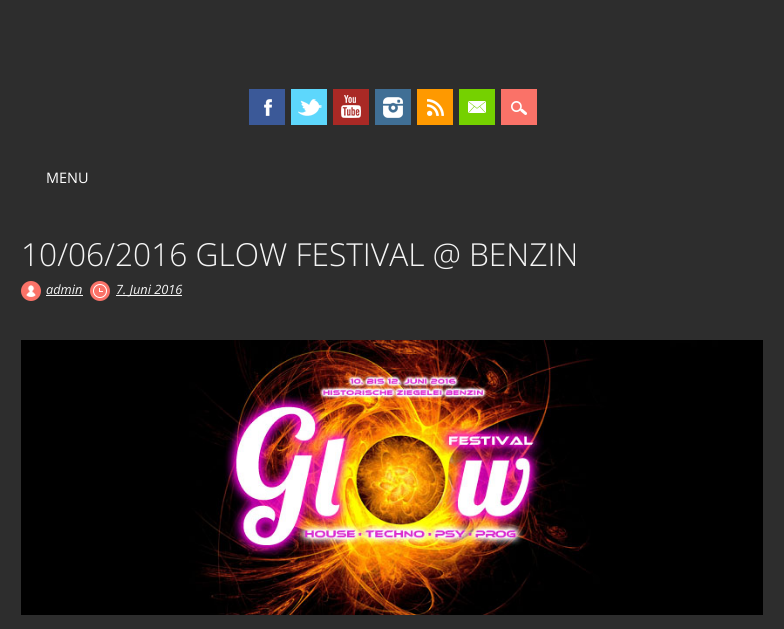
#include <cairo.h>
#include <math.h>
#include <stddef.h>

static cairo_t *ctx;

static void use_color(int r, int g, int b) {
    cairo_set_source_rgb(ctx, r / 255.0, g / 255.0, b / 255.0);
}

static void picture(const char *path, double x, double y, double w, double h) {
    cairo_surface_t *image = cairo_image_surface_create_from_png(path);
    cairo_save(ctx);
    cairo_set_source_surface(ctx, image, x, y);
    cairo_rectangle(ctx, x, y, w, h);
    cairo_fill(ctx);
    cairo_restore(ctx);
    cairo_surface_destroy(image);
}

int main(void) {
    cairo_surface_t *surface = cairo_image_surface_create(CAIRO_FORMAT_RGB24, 784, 629);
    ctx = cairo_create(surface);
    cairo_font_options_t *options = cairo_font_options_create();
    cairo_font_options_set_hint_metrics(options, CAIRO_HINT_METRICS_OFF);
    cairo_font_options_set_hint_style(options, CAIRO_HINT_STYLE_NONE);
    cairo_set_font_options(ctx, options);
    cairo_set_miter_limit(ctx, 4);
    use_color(45, 45, 45);
    cairo_paint(ctx);
    use_color(59, 89, 152);
    cairo_rectangle(ctx, 249, 89, 36, 36);
    cairo_fill(ctx);
    picture("img1.png", 264, 99, 8, 17);
    use_color(93, 215, 252);
    cairo_rectangle(ctx, 291, 89, 36, 36);
    cairo_fill(ctx);
    picture("img2.png", 298, 99, 24, 17);
    use_color(169, 41, 37);
    cairo_rectangle(ctx, 333, 89, 36, 36);
    cairo_fill(ctx);
    picture("img3.png", 341, 95, 20, 23);
    use_color(64, 111, 149);
    cairo_rectangle(ctx, 375, 89, 36, 36);
    cairo_fill(ctx);
    picture("img4.png", 383, 97, 20, 21);
    use_color(254, 153, 0);
    cairo_rectangle(ctx, 417, 89, 36, 36);
    cairo_fill(ctx);
    picture("img5.png", 427, 99, 17, 17);
    use_color(117, 209, 0);
    cairo_rectangle(ctx, 459, 89, 36, 36);
    cairo_fill(ctx);
    picture("img6.png", 468, 101, 18, 12);
    use_color(250, 114, 104);
    cairo_rectangle(ctx, 501, 89, 36, 36);
    cairo_fill(ctx);
    picture("img7.png", 511, 101, 16, 14);
    cairo_select_font_face(ctx, "Open Sans", CAIRO_FONT_SLANT_NORMAL, CAIRO_FONT_WEIGHT_NORMAL);
    cairo_set_font_size(ctx, 14.5);
    use_color(255, 255, 255);
    cairo_move_to(ctx, 46, 183);
    cairo_show_text(ctx, "MENU");
    cairo_select_font_face(ctx, "Open Sans Light", CAIRO_FONT_SLANT_NORMAL, CAIRO_FONT_WEIGHT_NORMAL);
    cairo_set_font_size(ctx, 31.7);
    use_color(244, 244, 244);
    cairo_move_to(ctx, 21, 266);
    cairo_show_text(ctx, "10/06/2016 GLOW FESTIVAL @ BENZIN");
    use_color(250, 114, 104);
    cairo_new_path(ctx);
    cairo_arc(ctx, 31, 291, 10, 0, 2 * M_PI);
    cairo_fill(ctx);
    picture("img8.png", 26, 285, 10, 12);
    cairo_select_font_face(ctx, "Open Sans", CAIRO_FONT_SLANT_ITALIC, CAIRO_FONT_WEIGHT_NORMAL);
    cairo_set_font_size(ctx, 12.75);
    use_color(244, 244, 244);
    cairo_move_to(ctx, 46, 294);
    cairo_show_text(ctx, "admin");
    cairo_rectangle(ctx, 46, 295, 37, 1);
    cairo_fill(ctx);
    use_color(250, 114, 104);
    cairo_arc(ctx, 100, 291, 10, 0, 2 * M_PI);
    cairo_fill(ctx);
    picture("img9.png", 93, 284, 14, 14);
    use_color(244, 244, 244);
    cairo_rectangle(ctx, 116, 295, 66, 1);
    cairo_fill(ctx);
    cairo_move_to(ctx, 116, 294);
    cairo_show_text(ctx, "7. Juni 2016");
    picture("img10.png", 21, 340, 742, 275);
    cairo_surface_write_to_png(surface, "result.png");
    cairo_font_options_destroy(options);
    cairo_destroy(ctx);
    cairo_surface_destroy(surface);
    return 0;
}
